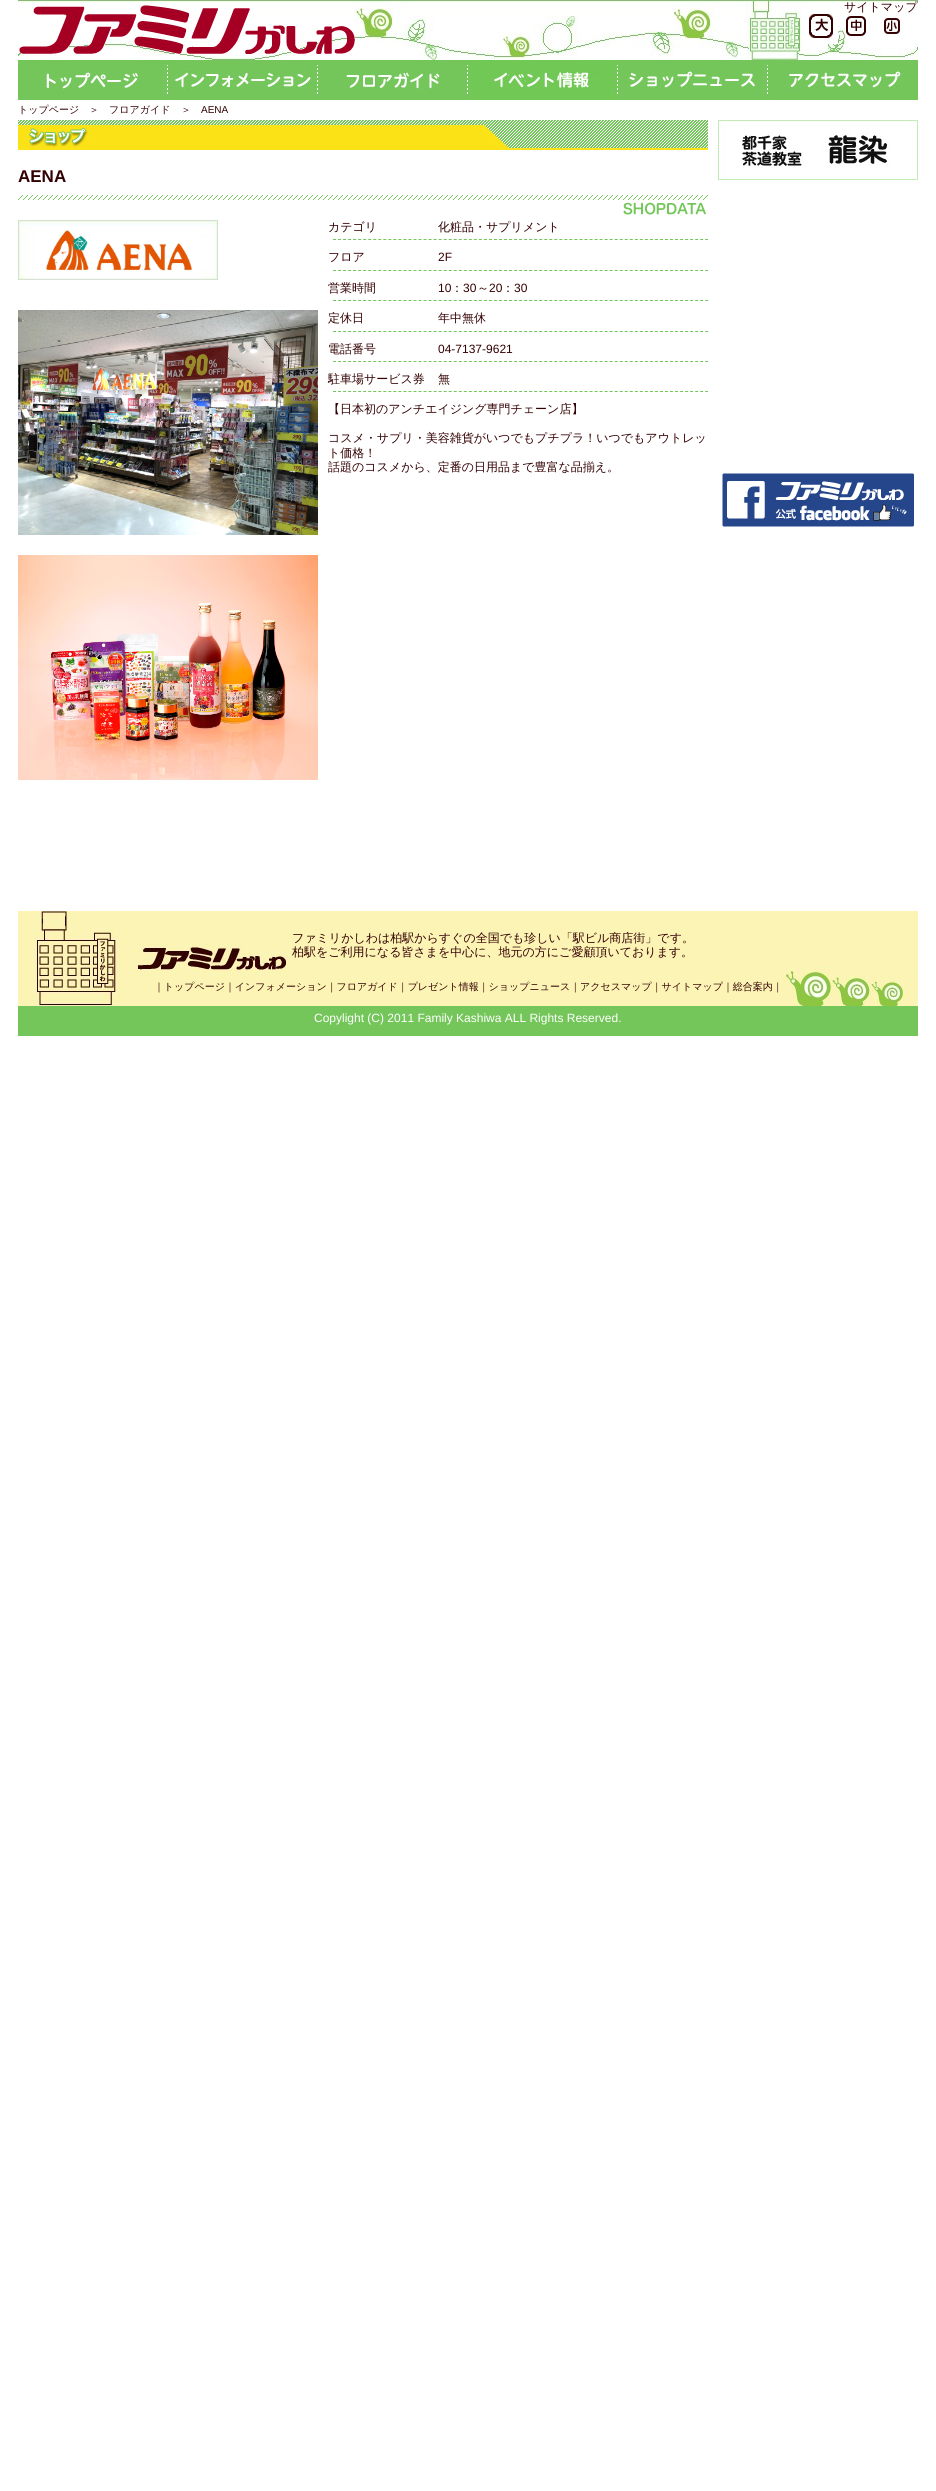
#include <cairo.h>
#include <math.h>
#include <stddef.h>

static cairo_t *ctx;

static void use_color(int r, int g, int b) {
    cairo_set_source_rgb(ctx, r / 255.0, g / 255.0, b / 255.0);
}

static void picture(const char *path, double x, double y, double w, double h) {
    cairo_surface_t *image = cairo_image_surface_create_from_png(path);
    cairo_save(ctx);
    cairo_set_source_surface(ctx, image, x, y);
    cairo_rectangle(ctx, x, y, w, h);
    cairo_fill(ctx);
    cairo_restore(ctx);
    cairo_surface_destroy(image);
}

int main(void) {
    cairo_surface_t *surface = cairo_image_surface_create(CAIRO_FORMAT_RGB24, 936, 2491);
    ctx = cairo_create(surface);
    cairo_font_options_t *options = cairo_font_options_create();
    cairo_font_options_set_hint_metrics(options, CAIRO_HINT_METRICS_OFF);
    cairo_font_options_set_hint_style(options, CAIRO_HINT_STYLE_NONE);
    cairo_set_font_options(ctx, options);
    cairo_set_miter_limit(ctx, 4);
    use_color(255, 255, 255);
    cairo_paint(ctx);
    picture("img1.png", 18, 0, 900, 60);
    picture("img2.png", 19, 5, 336, 49);
    cairo_select_font_face(ctx, "WenQuanYi Zen Hei Medium", CAIRO_FONT_SLANT_NORMAL, CAIRO_FONT_WEIGHT_NORMAL);
    cairo_set_font_size(ctx, 12);
    use_color(51, 0, 1);
    cairo_move_to(ctx, 844, 11);
    cairo_show_text(ctx, "サイトマップ");
    picture("img3.png", 809, 14, 29, 30);
    picture("img4.png", 846, 14, 24, 30);
    picture("img5.png", 884, 14, 16, 24);
    picture("img6.png", 18, 60, 900, 40);
    cairo_set_font_size(ctx, 10);
    cairo_move_to(ctx, 18, 113);
    cairo_show_text(ctx, "トップページ");
    cairo_move_to(ctx, 89, 113);
    cairo_show_text(ctx, "＞");
    cairo_move_to(ctx, 109, 113);
    cairo_show_text(ctx, "フロアガイド");
    cairo_move_to(ctx, 181, 113);
    cairo_show_text(ctx, "＞");
    cairo_select_font_face(ctx, "Liberation Sans", CAIRO_FONT_SLANT_NORMAL, CAIRO_FONT_WEIGHT_NORMAL);
    cairo_move_to(ctx, 201, 113);
    cairo_show_text(ctx, "AENA");
    picture("img7.png", 18, 120, 690, 30);
    cairo_select_font_face(ctx, "Liberation Sans", CAIRO_FONT_SLANT_NORMAL, CAIRO_FONT_WEIGHT_BOLD);
    cairo_set_font_size(ctx, 17);
    cairo_move_to(ctx, 18, 182);
    cairo_show_text(ctx, "AENA");
    picture("img8.png", 18, 195, 690, 20);
    picture("img9.png", 18, 220, 200, 60);
    picture("img10.png", 18, 310, 300, 225);
    picture("img11.png", 18, 555, 300, 225);
    cairo_select_font_face(ctx, "WenQuanYi Zen Hei Medium", CAIRO_FONT_SLANT_NORMAL, CAIRO_FONT_WEIGHT_NORMAL);
    cairo_set_font_size(ctx, 12);
    cairo_move_to(ctx, 328, 231);
    cairo_show_text(ctx, "カテゴリ");
    cairo_new_path(ctx);
    cairo_move_to(ctx, 333, 239.5);
    cairo_line_to(ctx, 708, 239.5);
    use_color(116, 198, 91);
    cairo_set_line_width(ctx, 1);
    cairo_set_dash(ctx, (double[]){3, 2.03}, 2, 0);
    cairo_stroke(ctx);
    use_color(51, 0, 1);
    cairo_move_to(ctx, 438, 231);
    cairo_show_text(ctx, "化粧品・サプリメント");
    cairo_move_to(ctx, 328, 261);
    cairo_show_text(ctx, "フロア");
    cairo_new_path(ctx);
    cairo_move_to(ctx, 333, 270.5);
    cairo_line_to(ctx, 708, 270.5);
    use_color(116, 198, 91);
    cairo_stroke(ctx);
    cairo_select_font_face(ctx, "Liberation Sans", CAIRO_FONT_SLANT_NORMAL, CAIRO_FONT_WEIGHT_NORMAL);
    use_color(51, 0, 1);
    cairo_move_to(ctx, 438, 261);
    cairo_show_text(ctx, "2F");
    cairo_select_font_face(ctx, "WenQuanYi Zen Hei Medium", CAIRO_FONT_SLANT_NORMAL, CAIRO_FONT_WEIGHT_NORMAL);
    cairo_move_to(ctx, 328, 292);
    cairo_show_text(ctx, "営業時間");
    cairo_new_path(ctx);
    cairo_move_to(ctx, 333, 300.5);
    cairo_line_to(ctx, 708, 300.5);
    use_color(116, 198, 91);
    cairo_stroke(ctx);
    cairo_select_font_face(ctx, "Liberation Sans", CAIRO_FONT_SLANT_NORMAL, CAIRO_FONT_WEIGHT_NORMAL);
    use_color(51, 0, 1);
    cairo_move_to(ctx, 438, 292);
    cairo_show_text(ctx, "10");
    cairo_select_font_face(ctx, "WenQuanYi Zen Hei Medium", CAIRO_FONT_SLANT_NORMAL, CAIRO_FONT_WEIGHT_NORMAL);
    cairo_move_to(ctx, 451, 292);
    cairo_show_text(ctx, "：");
    cairo_select_font_face(ctx, "Liberation Sans", CAIRO_FONT_SLANT_NORMAL, CAIRO_FONT_WEIGHT_NORMAL);
    cairo_move_to(ctx, 463, 292);
    cairo_show_text(ctx, "30");
    cairo_select_font_face(ctx, "WenQuanYi Zen Hei Medium", CAIRO_FONT_SLANT_NORMAL, CAIRO_FONT_WEIGHT_NORMAL);
    cairo_move_to(ctx, 477, 292);
    cairo_show_text(ctx, "～");
    cairo_select_font_face(ctx, "Liberation Sans", CAIRO_FONT_SLANT_NORMAL, CAIRO_FONT_WEIGHT_NORMAL);
    cairo_move_to(ctx, 489, 292);
    cairo_show_text(ctx, "20");
    cairo_select_font_face(ctx, "WenQuanYi Zen Hei Medium", CAIRO_FONT_SLANT_NORMAL, CAIRO_FONT_WEIGHT_NORMAL);
    cairo_move_to(ctx, 502, 292);
    cairo_show_text(ctx, "：");
    cairo_select_font_face(ctx, "Liberation Sans", CAIRO_FONT_SLANT_NORMAL, CAIRO_FONT_WEIGHT_NORMAL);
    cairo_move_to(ctx, 514, 292);
    cairo_show_text(ctx, "30");
    cairo_select_font_face(ctx, "WenQuanYi Zen Hei Medium", CAIRO_FONT_SLANT_NORMAL, CAIRO_FONT_WEIGHT_NORMAL);
    cairo_move_to(ctx, 328, 322);
    cairo_show_text(ctx, "定休日");
    cairo_new_path(ctx);
    cairo_move_to(ctx, 333, 331.5);
    cairo_line_to(ctx, 708, 331.5);
    use_color(116, 198, 91);
    cairo_stroke(ctx);
    use_color(51, 0, 1);
    cairo_move_to(ctx, 438, 322);
    cairo_show_text(ctx, "年中無休");
    cairo_move_to(ctx, 328, 353);
    cairo_show_text(ctx, "電話番号");
    cairo_new_path(ctx);
    cairo_move_to(ctx, 333, 361.5);
    cairo_line_to(ctx, 708, 361.5);
    use_color(116, 198, 91);
    cairo_stroke(ctx);
    cairo_select_font_face(ctx, "Liberation Sans", CAIRO_FONT_SLANT_NORMAL, CAIRO_FONT_WEIGHT_NORMAL);
    use_color(51, 0, 1);
    cairo_move_to(ctx, 438, 353);
    cairo_show_text(ctx, "04-7137-9621");
    cairo_select_font_face(ctx, "WenQuanYi Zen Hei Medium", CAIRO_FONT_SLANT_NORMAL, CAIRO_FONT_WEIGHT_NORMAL);
    cairo_move_to(ctx, 328, 383);
    cairo_show_text(ctx, "駐車場サービス券");
    cairo_new_path(ctx);
    cairo_move_to(ctx, 333, 391.5);
    cairo_line_to(ctx, 708, 391.5);
    use_color(116, 198, 91);
    cairo_stroke(ctx);
    use_color(51, 0, 1);
    cairo_move_to(ctx, 438, 383);
    cairo_show_text(ctx, "無");
    cairo_move_to(ctx, 328, 413);
    cairo_show_text(ctx, "【日本初のアンチエイジング専門チェーン店】");
    cairo_move_to(ctx, 328, 442);
    cairo_show_text(ctx, "コスメ・サプリ・美容雑貨がいつでもプチプラ！いつでもアウトレッ");
    cairo_move_to(ctx, 328, 457);
    cairo_show_text(ctx, "ト価格！");
    cairo_move_to(ctx, 328, 471);
    cairo_show_text(ctx, "話題のコスメから、定番の日用品まで豊富な品揃え。");
    picture("img12.png", 718, 120, 200, 60);
    picture("img13.png", 722, 473, 192, 54);
    picture("img14.png", 18, 911, 900, 95);
    cairo_move_to(ctx, 292, 942);
    cairo_show_text(ctx, "ファミリかしわは柏駅からすぐの全国でも珍しい「駅ビル商店街」です。");
    cairo_move_to(ctx, 292, 956);
    cairo_show_text(ctx, "柏駅をご利用になる皆さまを中心に、地元の方にご愛顧頂いております。");
    cairo_set_font_size(ctx, 10);
    cairo_move_to(ctx, 154, 990);
    cairo_show_text(ctx, "｜トップページ｜インフォメーション｜フロアガイド｜プレゼント情報｜ショップニュース｜アクセスマップ｜サイトマップ｜総合案内｜");
    use_color(116, 198, 90);
    cairo_rectangle(ctx, 18, 1006, 900, 30);
    cairo_fill(ctx);
    cairo_select_font_face(ctx, "Liberation Sans", CAIRO_FONT_SLANT_NORMAL, CAIRO_FONT_WEIGHT_NORMAL);
    cairo_set_font_size(ctx, 12);
    use_color(255, 255, 255);
    cairo_move_to(ctx, 314, 1022);
    cairo_show_text(ctx, "Copylight (C) 2011 Family Kashiwa ALL Rights Reserved.");
    cairo_surface_write_to_png(surface, "result.png");
    cairo_font_options_destroy(options);
    cairo_destroy(ctx);
    cairo_surface_destroy(surface);
    return 0;
}
